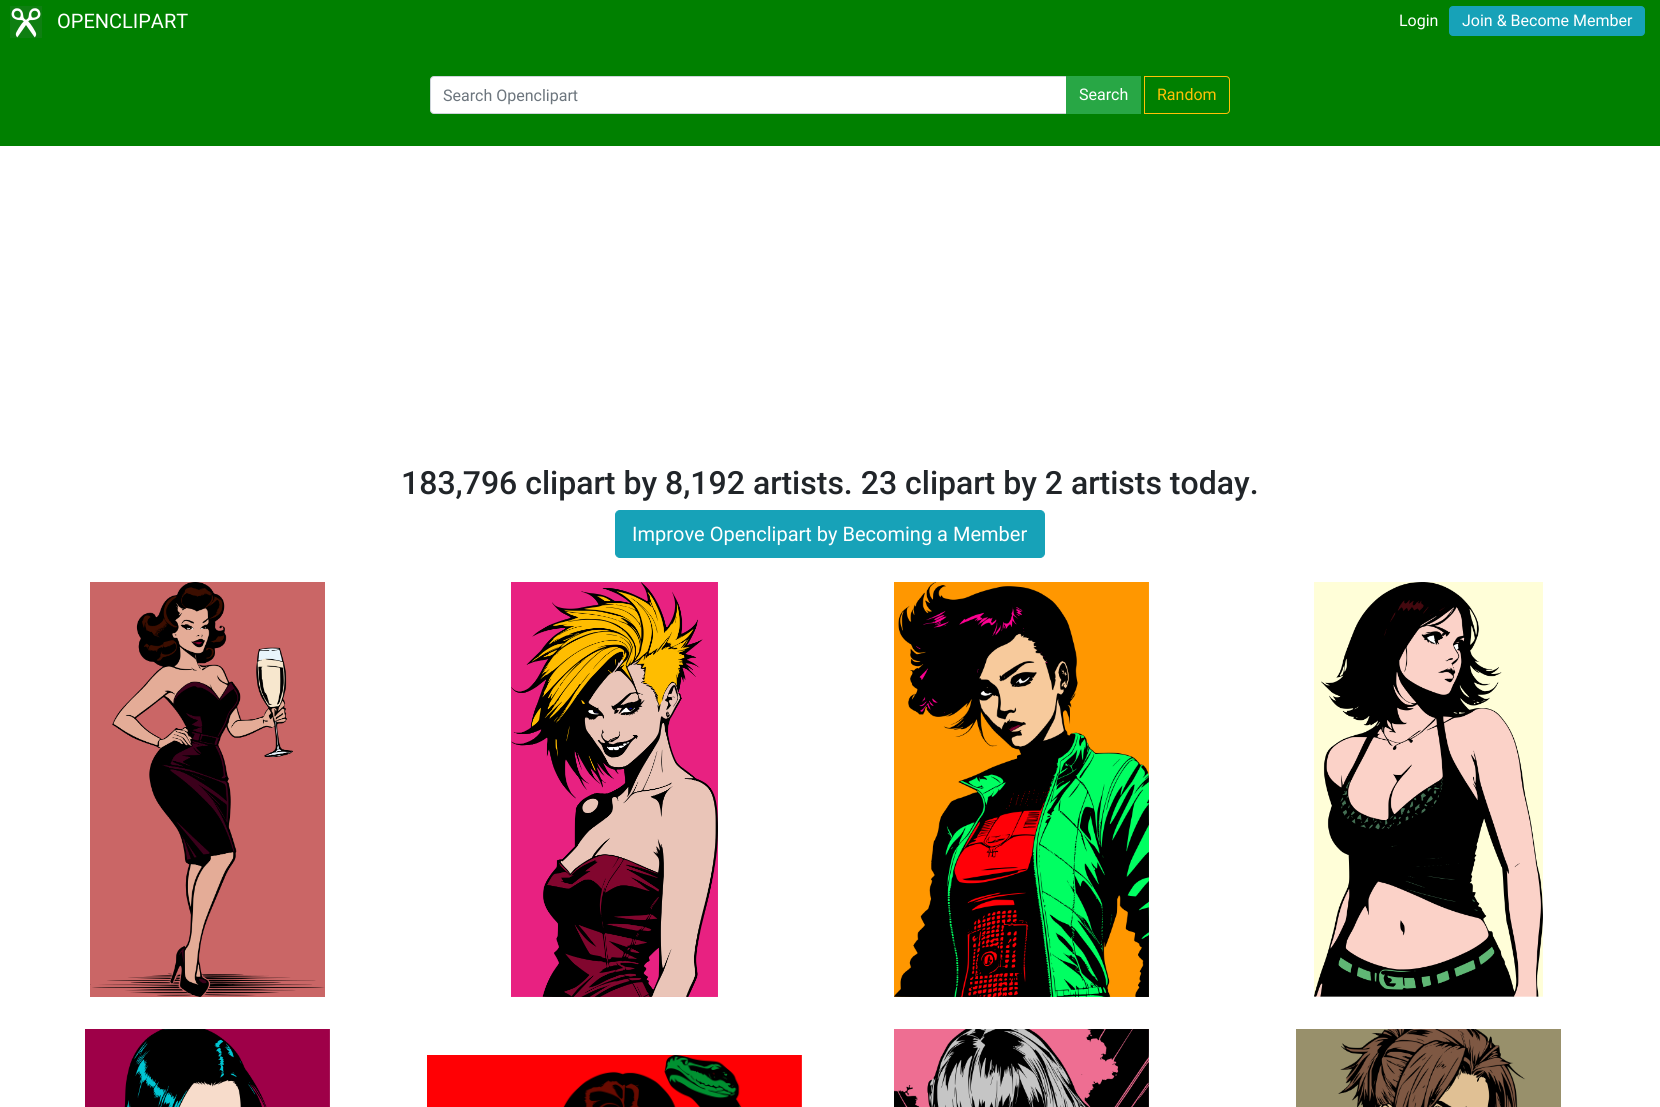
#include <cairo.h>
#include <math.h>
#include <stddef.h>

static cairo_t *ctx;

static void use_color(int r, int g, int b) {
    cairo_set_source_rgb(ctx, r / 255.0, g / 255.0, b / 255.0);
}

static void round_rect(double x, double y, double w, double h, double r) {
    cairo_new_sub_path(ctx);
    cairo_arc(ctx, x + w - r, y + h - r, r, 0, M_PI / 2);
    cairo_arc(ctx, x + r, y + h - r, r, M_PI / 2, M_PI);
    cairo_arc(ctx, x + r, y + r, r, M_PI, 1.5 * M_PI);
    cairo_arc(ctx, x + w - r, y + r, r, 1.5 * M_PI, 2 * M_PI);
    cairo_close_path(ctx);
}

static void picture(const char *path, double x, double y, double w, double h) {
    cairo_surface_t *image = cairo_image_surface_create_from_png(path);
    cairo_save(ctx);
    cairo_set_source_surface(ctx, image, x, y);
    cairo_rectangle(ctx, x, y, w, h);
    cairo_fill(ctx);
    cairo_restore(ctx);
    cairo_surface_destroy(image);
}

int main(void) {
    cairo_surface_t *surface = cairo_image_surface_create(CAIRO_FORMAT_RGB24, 1660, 1107);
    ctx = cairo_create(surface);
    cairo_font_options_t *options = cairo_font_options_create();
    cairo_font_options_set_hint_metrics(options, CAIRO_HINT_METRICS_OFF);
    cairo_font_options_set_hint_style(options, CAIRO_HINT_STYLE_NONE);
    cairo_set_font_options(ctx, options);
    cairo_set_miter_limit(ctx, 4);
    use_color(255, 255, 255);
    cairo_paint(ctx);
    use_color(0, 128, 0);
    cairo_rectangle(ctx, 0, 0, 1660, 146);
    cairo_fill(ctx);
    picture("img1.png", 10, 6, 32, 32);
    cairo_select_font_face(ctx, "Roboto", CAIRO_FONT_SLANT_NORMAL, CAIRO_FONT_WEIGHT_NORMAL);
    cairo_set_font_size(ctx, 20);
    use_color(255, 255, 255);
    cairo_move_to(ctx, 57, 28);
    cairo_show_text(ctx, "OPENCLIPART");
    cairo_set_font_size(ctx, 16);
    cairo_move_to(ctx, 1399, 26);
    cairo_show_text(ctx, "Login");
    use_color(23, 162, 184);
    round_rect(1449.5, 6.5, 195, 29, 3.5);
    cairo_fill_preserve(ctx);
    cairo_set_line_width(ctx, 1);
    cairo_stroke(ctx);
    use_color(255, 255, 255);
    cairo_move_to(ctx, 1462, 26);
    cairo_show_text(ctx, "Join & Become Member");
    cairo_new_path(ctx);
    cairo_move_to(ctx, 434, 76.5);
    cairo_line_to(ctx, 1066.5, 76.5);
    cairo_line_to(ctx, 1066.5, 113.5);
    cairo_line_to(ctx, 434, 113.5);
    cairo_curve_to(ctx, 432, 113.5, 430.5, 112, 430.5, 110);
    cairo_line_to(ctx, 430.5, 80);
    cairo_curve_to(ctx, 430.5, 78, 432, 76.5, 434, 76.5);
    cairo_close_path(ctx);
    cairo_fill_preserve(ctx);
    use_color(206, 212, 218);
    cairo_stroke(ctx);
    use_color(108, 117, 125);
    cairo_move_to(ctx, 443, 101);
    cairo_show_text(ctx, "Search Openclipart");
    use_color(40, 167, 69);
    cairo_rectangle(ctx, 1066, 76, 75, 38);
    cairo_fill(ctx);
    use_color(255, 255, 255);
    cairo_move_to(ctx, 1079, 100);
    cairo_show_text(ctx, "Search");
    cairo_new_path(ctx);
    cairo_move_to(ctx, 1144.5, 76.5);
    cairo_line_to(ctx, 1226, 76.5);
    cairo_curve_to(ctx, 1228, 76.5, 1229.5, 78, 1229.5, 80);
    cairo_line_to(ctx, 1229.5, 110);
    cairo_curve_to(ctx, 1229.5, 112, 1228, 113.5, 1226, 113.5);
    cairo_line_to(ctx, 1144.5, 113.5);
    cairo_close_path(ctx);
    use_color(255, 193, 7);
    cairo_stroke(ctx);
    cairo_move_to(ctx, 1157, 100);
    cairo_show_text(ctx, "Random");
    cairo_select_font_face(ctx, "Roboto Medium", CAIRO_FONT_SLANT_NORMAL, CAIRO_FONT_WEIGHT_NORMAL);
    cairo_set_font_size(ctx, 32);
    use_color(33, 37, 41);
    cairo_move_to(ctx, 401, 494);
    cairo_show_text(ctx, "183,796 clipart by 8,192 artists. 23 clipart by 2 artists today.");
    use_color(23, 162, 184);
    round_rect(615.5, 510.5, 429, 47, 4.5);
    cairo_fill_preserve(ctx);
    cairo_stroke(ctx);
    cairo_select_font_face(ctx, "Roboto", CAIRO_FONT_SLANT_NORMAL, CAIRO_FONT_WEIGHT_NORMAL);
    cairo_set_font_size(ctx, 20);
    use_color(255, 255, 255);
    cairo_move_to(ctx, 632, 541);
    cairo_show_text(ctx, "Improve Openclipart by Becoming a Member");
    picture("img2.png", 90, 582, 235, 415);
    picture("img3.png", 511, 582, 207, 415);
    picture("img4.png", 894, 582, 255, 415);
    picture("img5.png", 1314, 582, 229, 415);
    picture("img6.png", 85, 1029, 245, 78);
    picture("img7.png", 427, 1055, 375, 52);
    picture("img8.png", 894, 1029, 255, 78);
    picture("img9.png", 1296, 1029, 265, 78);
    cairo_surface_write_to_png(surface, "result.png");
    cairo_font_options_destroy(options);
    cairo_destroy(ctx);
    cairo_surface_destroy(surface);
    return 0;
}
